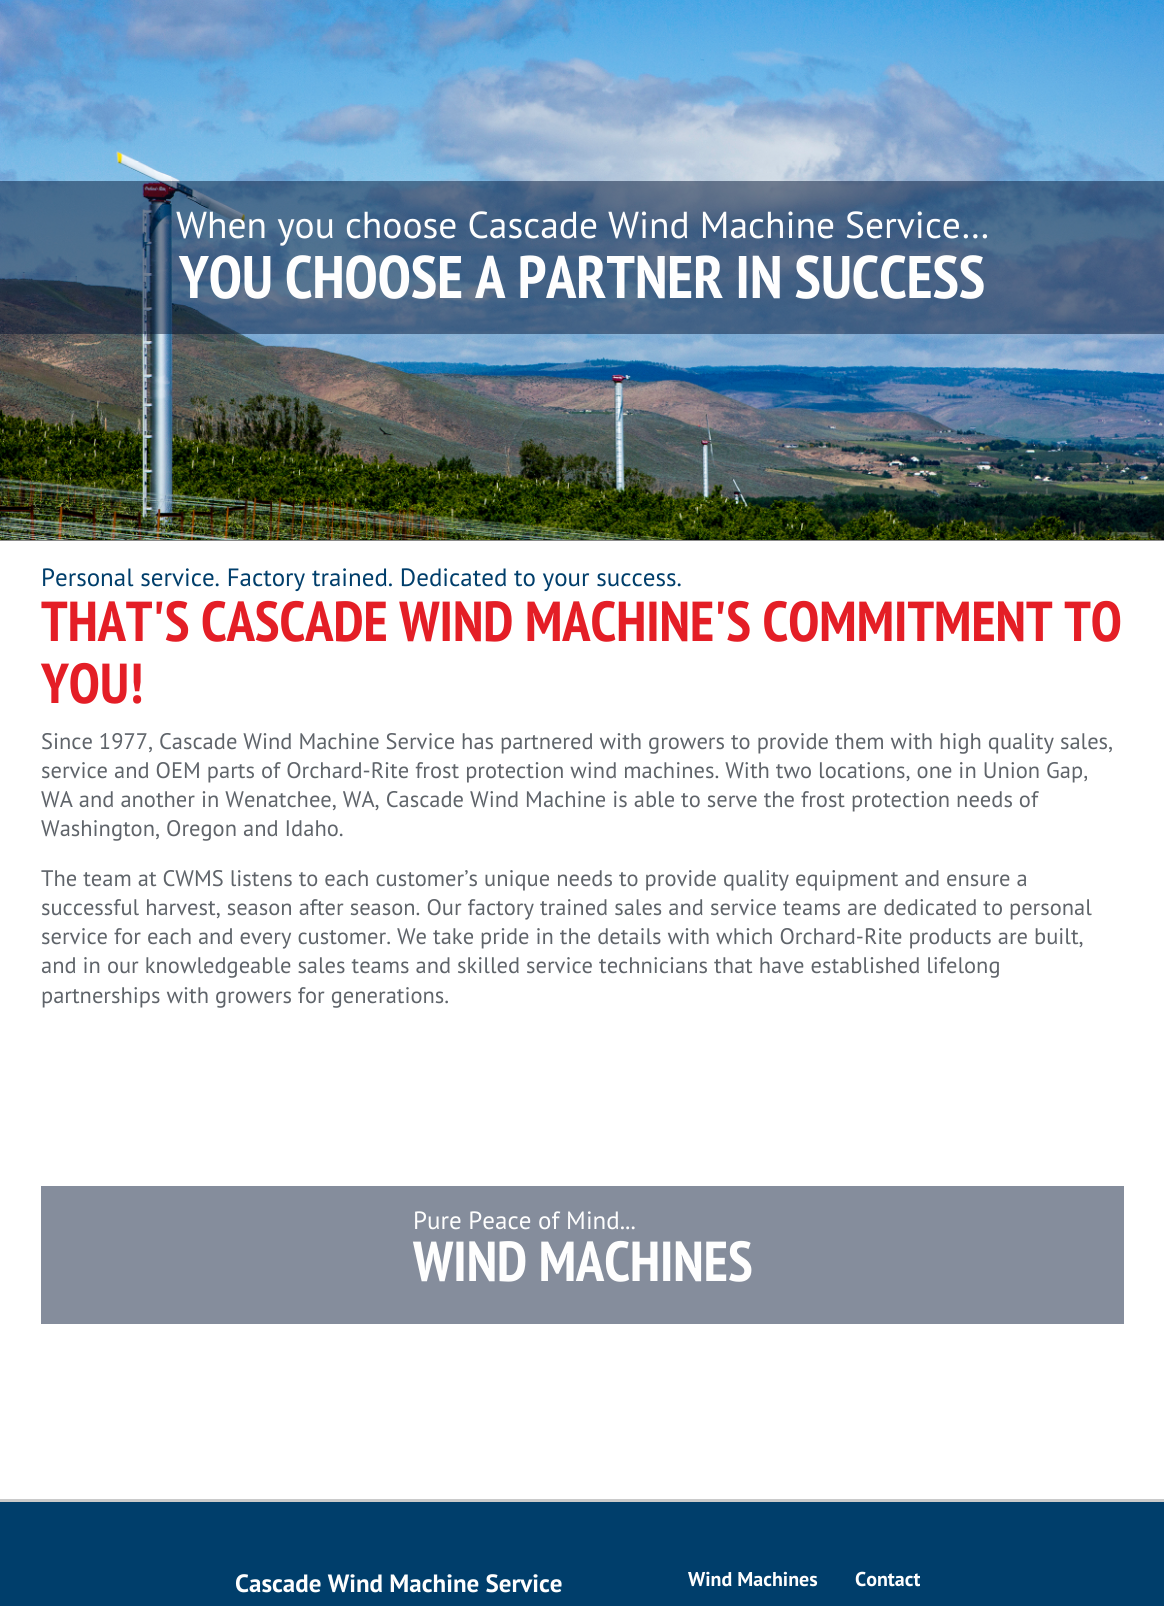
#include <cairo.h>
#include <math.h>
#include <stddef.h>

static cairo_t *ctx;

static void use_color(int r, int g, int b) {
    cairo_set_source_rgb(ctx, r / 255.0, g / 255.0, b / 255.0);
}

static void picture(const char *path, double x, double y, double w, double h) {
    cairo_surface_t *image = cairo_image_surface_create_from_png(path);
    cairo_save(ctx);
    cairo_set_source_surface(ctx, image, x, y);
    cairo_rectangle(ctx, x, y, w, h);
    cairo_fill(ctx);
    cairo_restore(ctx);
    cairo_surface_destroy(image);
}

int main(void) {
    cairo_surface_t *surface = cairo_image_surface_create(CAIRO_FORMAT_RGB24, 1164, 1606);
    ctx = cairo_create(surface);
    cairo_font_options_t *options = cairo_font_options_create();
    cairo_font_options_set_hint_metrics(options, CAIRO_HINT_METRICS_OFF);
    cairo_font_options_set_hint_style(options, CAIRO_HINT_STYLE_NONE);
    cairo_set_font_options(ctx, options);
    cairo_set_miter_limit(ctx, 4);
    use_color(255, 255, 255);
    cairo_paint(ctx);
    use_color(138, 138, 138);
    cairo_rectangle(ctx, 0, 540, 1164, 1);
    cairo_fill(ctx);
    picture("img1.png", 0, 0, 1164, 540);
    cairo_set_source_rgba(ctx, 0, 0.067, 0.192, 0.48);
    cairo_rectangle(ctx, 0, 181, 1164, 153);
    cairo_fill(ctx);
    cairo_select_font_face(ctx, "PT Sans", CAIRO_FONT_SLANT_NORMAL, CAIRO_FONT_WEIGHT_NORMAL);
    cairo_set_font_size(ctx, 37.5);
    use_color(254, 254, 254);
    cairo_move_to(ctx, 176, 238);
    cairo_show_text(ctx, "When you choose Cascade Wind Machine Service…");
    cairo_select_font_face(ctx, "PT Sans Narrow", CAIRO_FONT_SLANT_NORMAL, CAIRO_FONT_WEIGHT_BOLD);
    cairo_set_font_size(ctx, 60);
    cairo_move_to(ctx, 179, 298);
    cairo_show_text(ctx, "YOU CHOOSE A PARTNER IN SUCCESS");
    cairo_select_font_face(ctx, "PT Sans", CAIRO_FONT_SLANT_NORMAL, CAIRO_FONT_WEIGHT_NORMAL);
    cairo_set_font_size(ctx, 25);
    use_color(0, 62, 107);
    cairo_move_to(ctx, 41, 586);
    cairo_show_text(ctx, "Personal service. Factory trained. Dedicated to your success.");
    cairo_select_font_face(ctx, "PT Sans Narrow", CAIRO_FONT_SLANT_NORMAL, CAIRO_FONT_WEIGHT_BOLD);
    cairo_set_font_size(ctx, 56.25);
    use_color(228, 30, 38);
    cairo_move_to(ctx, 41, 641);
    cairo_show_text(ctx, "THAT'S CASCADE WIND MACHINE'S COMMITMENT TO");
    cairo_move_to(ctx, 41, 703);
    cairo_show_text(ctx, "YOU!");
    cairo_select_font_face(ctx, "PT Sans", CAIRO_FONT_SLANT_NORMAL, CAIRO_FONT_WEIGHT_NORMAL);
    cairo_set_font_size(ctx, 22.5);
    use_color(95, 100, 106);
    cairo_move_to(ctx, 41, 749);
    cairo_show_text(ctx, "Since 1977, Cascade Wind Machine Service has partnered with growers to provide them with high quality sales,");
    cairo_move_to(ctx, 41, 778);
    cairo_show_text(ctx, "service and OEM parts of Orchard-Rite frost protection wind machines. With two locations, one in Union Gap,");
    cairo_move_to(ctx, 41, 807);
    cairo_show_text(ctx, "WA and another in Wenatchee, WA, Cascade Wind Machine is able to serve the frost protection needs of");
    cairo_move_to(ctx, 41, 836);
    cairo_show_text(ctx, "Washington, Oregon and Idaho.");
    cairo_move_to(ctx, 41, 886);
    cairo_show_text(ctx, "The team at CWMS listens to each customer’s unique needs to provide quality equipment and ensure a");
    cairo_move_to(ctx, 41, 915);
    cairo_show_text(ctx, "successful harvest, season after season. Our factory trained sales and service teams are dedicated to personal");
    cairo_move_to(ctx, 41, 944);
    cairo_show_text(ctx, "service for each and every customer. We take pride in the details with which Orchard-Rite products are built,");
    cairo_move_to(ctx, 41, 973);
    cairo_show_text(ctx, "and in our knowledgeable sales teams and skilled service technicians that have established lifelong");
    cairo_move_to(ctx, 41, 1003);
    cairo_show_text(ctx, "partnerships with growers for generations.");
    use_color(133, 141, 156);
    cairo_rectangle(ctx, 41, 1186, 1083, 138);
    cairo_fill(ctx);
    cairo_set_font_size(ctx, 25);
    use_color(254, 254, 254);
    cairo_move_to(ctx, 413, 1229);
    cairo_show_text(ctx, "Pure Peace of Mind...");
    cairo_select_font_face(ctx, "PT Sans Narrow", CAIRO_FONT_SLANT_NORMAL, CAIRO_FONT_WEIGHT_BOLD);
    cairo_set_font_size(ctx, 56.25);
    cairo_move_to(ctx, 413, 1281);
    cairo_show_text(ctx, "WIND MACHINES");
    use_color(0, 62, 107);
    cairo_rectangle(ctx, 0, 1502, 1164, 104);
    cairo_fill(ctx);
    use_color(202, 202, 202);
    cairo_rectangle(ctx, 0, 1499, 1164, 3);
    cairo_fill(ctx);
    cairo_select_font_face(ctx, "PT Sans", CAIRO_FONT_SLANT_NORMAL, CAIRO_FONT_WEIGHT_BOLD);
    cairo_set_font_size(ctx, 25);
    use_color(254, 254, 254);
    cairo_move_to(ctx, 235, 1592);
    cairo_show_text(ctx, "Cascade Wind Machine Service");
    cairo_set_font_size(ctx, 20);
    cairo_move_to(ctx, 688, 1586);
    cairo_show_text(ctx, "Wind Machines");
    cairo_move_to(ctx, 855, 1586);
    cairo_show_text(ctx, "Contact");
    cairo_surface_write_to_png(surface, "result.png");
    cairo_font_options_destroy(options);
    cairo_destroy(ctx);
    cairo_surface_destroy(surface);
    return 0;
}
